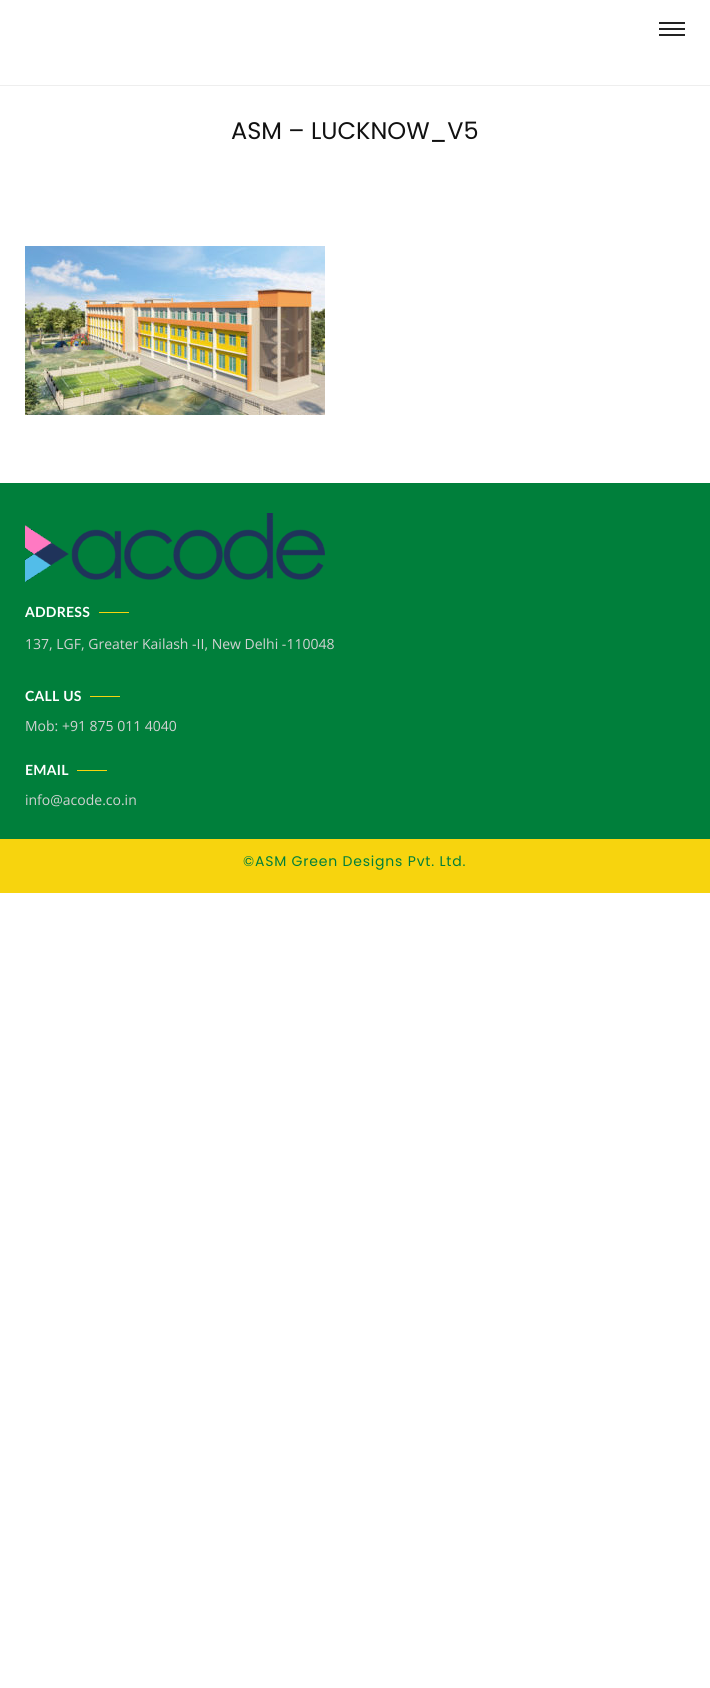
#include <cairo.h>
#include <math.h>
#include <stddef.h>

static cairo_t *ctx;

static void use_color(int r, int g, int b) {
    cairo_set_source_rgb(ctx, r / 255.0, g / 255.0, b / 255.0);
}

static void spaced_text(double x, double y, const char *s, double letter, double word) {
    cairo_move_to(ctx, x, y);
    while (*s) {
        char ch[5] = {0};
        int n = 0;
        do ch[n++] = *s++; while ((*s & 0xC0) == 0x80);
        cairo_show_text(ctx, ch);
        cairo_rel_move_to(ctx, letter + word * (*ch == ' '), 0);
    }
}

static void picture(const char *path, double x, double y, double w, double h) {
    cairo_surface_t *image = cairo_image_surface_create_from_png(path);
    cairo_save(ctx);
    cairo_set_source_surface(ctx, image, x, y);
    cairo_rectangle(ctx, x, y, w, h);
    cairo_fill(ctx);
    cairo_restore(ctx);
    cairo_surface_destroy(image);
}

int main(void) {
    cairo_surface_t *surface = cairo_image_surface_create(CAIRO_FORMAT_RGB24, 710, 1688);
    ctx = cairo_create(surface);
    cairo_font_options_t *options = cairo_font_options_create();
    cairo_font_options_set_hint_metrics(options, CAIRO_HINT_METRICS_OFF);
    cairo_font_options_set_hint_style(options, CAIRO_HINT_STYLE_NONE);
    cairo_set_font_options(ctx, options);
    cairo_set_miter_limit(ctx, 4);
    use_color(255, 255, 255);
    cairo_paint(ctx);
    use_color(238, 238, 238);
    cairo_rectangle(ctx, 0, 85, 710, 1);
    cairo_fill(ctx);
    use_color(35, 35, 35);
    cairo_rectangle(ctx, 659, 28, 26, 2);
    cairo_fill(ctx);
    cairo_rectangle(ctx, 659, 22, 26, 2);
    cairo_fill(ctx);
    cairo_rectangle(ctx, 659, 34, 26, 2);
    cairo_fill(ctx);
    cairo_select_font_face(ctx, "Poppins", CAIRO_FONT_SLANT_NORMAL, CAIRO_FONT_WEIGHT_NORMAL);
    cairo_set_font_size(ctx, 24);
    use_color(17, 17, 17);
    cairo_move_to(ctx, 231, 139);
    cairo_show_text(ctx, "ASM – LUCKNOW_V5");
    picture("img1.png", 25, 246, 300, 169);
    use_color(0, 127, 59);
    cairo_rectangle(ctx, 0, 483, 710, 356);
    cairo_fill(ctx);
    picture("img2.png", 25, 513, 300, 69);
    cairo_select_font_face(ctx, "Lato", CAIRO_FONT_SLANT_NORMAL, CAIRO_FONT_WEIGHT_BOLD);
    cairo_set_font_size(ctx, 14);
    use_color(255, 255, 255);
    spaced_text(25, 617, "ADDRESS", 0.25, 0);
    use_color(247, 212, 14);
    cairo_rectangle(ctx, 99, 612, 30, 1);
    cairo_fill(ctx);
    cairo_select_font_face(ctx, "Open Sans", CAIRO_FONT_SLANT_NORMAL, CAIRO_FONT_WEIGHT_NORMAL);
    use_color(210, 210, 210);
    cairo_move_to(ctx, 25, 649);
    cairo_show_text(ctx, "137, LGF, Greater Kailash -II, New Delhi -110048");
    cairo_select_font_face(ctx, "Lato", CAIRO_FONT_SLANT_NORMAL, CAIRO_FONT_WEIGHT_BOLD);
    use_color(255, 255, 255);
    spaced_text(25, 701, "CALL US", 0.25, 0);
    use_color(247, 212, 14);
    cairo_rectangle(ctx, 90, 696, 30, 1);
    cairo_fill(ctx);
    cairo_select_font_face(ctx, "Open Sans", CAIRO_FONT_SLANT_NORMAL, CAIRO_FONT_WEIGHT_NORMAL);
    use_color(210, 210, 210);
    cairo_move_to(ctx, 25, 731);
    cairo_show_text(ctx, "Mob: +91 875 011 4040");
    cairo_select_font_face(ctx, "Lato", CAIRO_FONT_SLANT_NORMAL, CAIRO_FONT_WEIGHT_BOLD);
    use_color(255, 255, 255);
    spaced_text(25, 775, "EMAIL", 0.25, 0);
    use_color(247, 212, 14);
    cairo_rectangle(ctx, 77, 770, 30, 1);
    cairo_fill(ctx);
    cairo_select_font_face(ctx, "Open Sans", CAIRO_FONT_SLANT_NORMAL, CAIRO_FONT_WEIGHT_NORMAL);
    use_color(210, 210, 210);
    cairo_move_to(ctx, 25, 805);
    cairo_show_text(ctx, "info@acode.co.in");
    use_color(247, 212, 14);
    cairo_rectangle(ctx, 0, 839, 710, 54);
    cairo_fill(ctx);
    cairo_select_font_face(ctx, "Poppins", CAIRO_FONT_SLANT_NORMAL, CAIRO_FONT_WEIGHT_NORMAL);
    use_color(0, 127, 59);
    spaced_text(243, 866, "©ASM Green Designs Pvt. Ltd.", 0.8, 0);
    cairo_surface_write_to_png(surface, "result.png");
    cairo_font_options_destroy(options);
    cairo_destroy(ctx);
    cairo_surface_destroy(surface);
    return 0;
}
